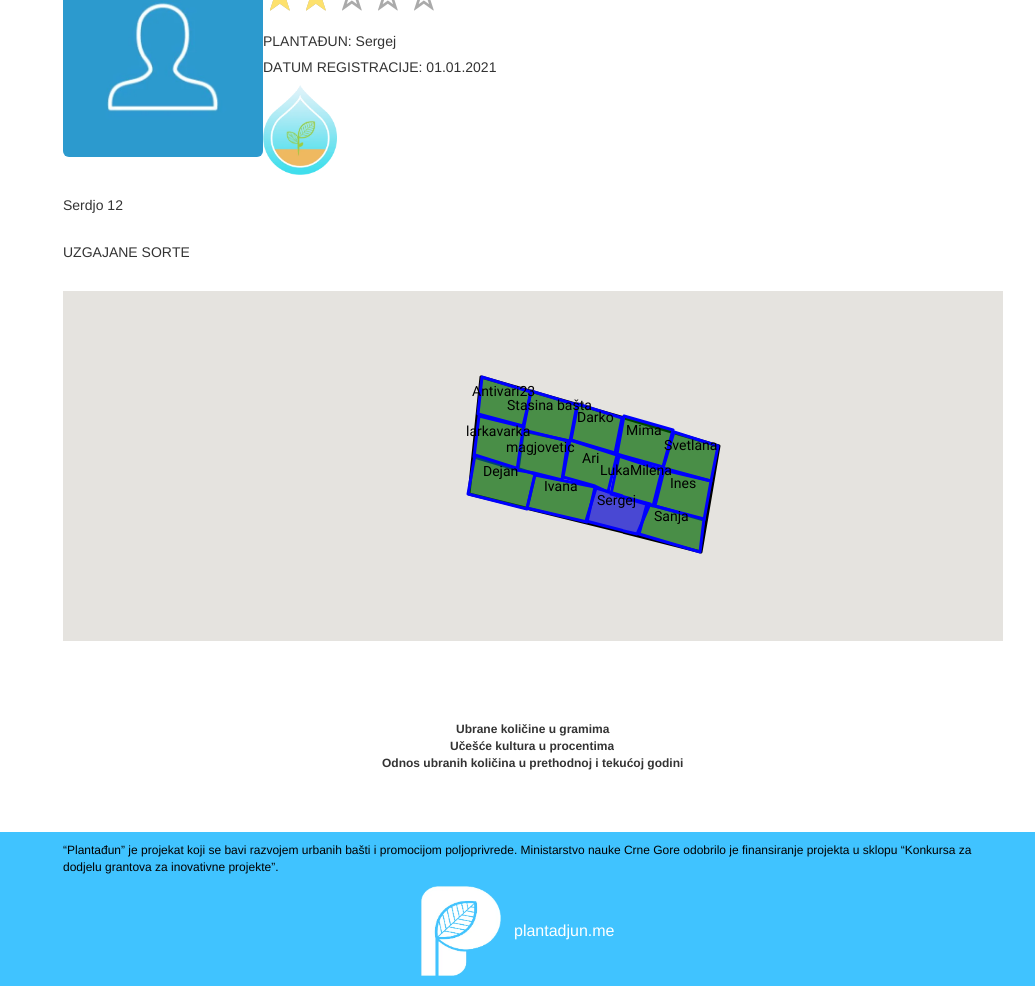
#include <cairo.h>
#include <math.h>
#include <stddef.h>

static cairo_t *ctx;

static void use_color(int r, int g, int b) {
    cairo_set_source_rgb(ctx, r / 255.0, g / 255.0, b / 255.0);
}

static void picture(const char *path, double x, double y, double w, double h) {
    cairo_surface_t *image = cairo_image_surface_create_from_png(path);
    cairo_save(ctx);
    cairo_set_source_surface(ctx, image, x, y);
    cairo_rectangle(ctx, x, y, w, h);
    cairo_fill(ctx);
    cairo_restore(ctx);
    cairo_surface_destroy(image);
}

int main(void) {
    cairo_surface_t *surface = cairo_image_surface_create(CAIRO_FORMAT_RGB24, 1035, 986);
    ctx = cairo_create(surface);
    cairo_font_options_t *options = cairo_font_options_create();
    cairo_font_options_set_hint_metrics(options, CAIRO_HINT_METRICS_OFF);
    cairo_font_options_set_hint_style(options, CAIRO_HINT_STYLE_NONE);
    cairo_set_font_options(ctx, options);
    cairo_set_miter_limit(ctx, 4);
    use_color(255, 255, 255);
    cairo_paint(ctx);
    picture("img1.png", 63, 0, 200, 157);
    picture("img2.png", 270, 0, 20, 11);
    picture("img2.png", 306, 0, 20, 11);
    picture("img2.png", 342, 0, 20, 11);
    picture("img2.png", 378, 0, 20, 11);
    picture("img2.png", 414, 0, 20, 11);
    picture("img3.png", 270, 0, 20, 11);
    picture("img3.png", 306, 0, 20, 11);
    cairo_select_font_face(ctx, "Liberation Sans", CAIRO_FONT_SLANT_NORMAL, CAIRO_FONT_WEIGHT_NORMAL);
    cairo_set_font_size(ctx, 14);
    use_color(51, 51, 51);
    cairo_move_to(ctx, 263, 46);
    cairo_show_text(ctx, "PLANTAĐUN: Sergej");
    cairo_move_to(ctx, 263, 72);
    cairo_show_text(ctx, "DATUM REGISTRACIJE: 01.01.2021");
    picture("img4.png", 263, 85, 74, 90);
    cairo_move_to(ctx, 63, 210);
    cairo_show_text(ctx, "Serdjo 12");
    cairo_move_to(ctx, 63, 257);
    cairo_show_text(ctx, "UZGAJANE SORTE");
    use_color(229, 227, 223);
    cairo_rectangle(ctx, 63, 291, 940, 350);
    cairo_fill(ctx);
    picture("img5.png", 466, 375, 157, 159);
    picture("img6.png", 623, 414, 98, 140);
    cairo_select_font_face(ctx, "Roboto", CAIRO_FONT_SLANT_NORMAL, CAIRO_FONT_WEIGHT_NORMAL);
    use_color(0, 0, 0);
    cairo_move_to(ctx, 472, 396);
    cairo_show_text(ctx, "Antivari23");
    cairo_move_to(ctx, 507, 410);
    cairo_show_text(ctx, "Stasina bašta");
    cairo_move_to(ctx, 577, 422);
    cairo_show_text(ctx, "Darko");
    cairo_move_to(ctx, 466, 436);
    cairo_show_text(ctx, "larkavarka");
    cairo_move_to(ctx, 626, 435);
    cairo_show_text(ctx, "Mima");
    cairo_move_to(ctx, 506, 452);
    cairo_show_text(ctx, "magjovetic");
    cairo_move_to(ctx, 664, 450);
    cairo_show_text(ctx, "Svetlana");
    cairo_move_to(ctx, 582, 463);
    cairo_show_text(ctx, "Ari");
    cairo_move_to(ctx, 483, 476);
    cairo_show_text(ctx, "Dejan");
    cairo_move_to(ctx, 600, 475);
    cairo_show_text(ctx, "LukaMilena");
    cairo_move_to(ctx, 544, 491);
    cairo_show_text(ctx, "Ivana");
    cairo_move_to(ctx, 670, 488);
    cairo_show_text(ctx, "Ines");
    cairo_move_to(ctx, 597, 505);
    cairo_show_text(ctx, "Sergej");
    cairo_move_to(ctx, 654, 521);
    cairo_show_text(ctx, "Sanja");
    cairo_select_font_face(ctx, "Liberation Sans", CAIRO_FONT_SLANT_NORMAL, CAIRO_FONT_WEIGHT_BOLD);
    cairo_set_font_size(ctx, 12);
    use_color(51, 51, 51);
    cairo_move_to(ctx, 456, 733);
    cairo_show_text(ctx, "Ubrane količine u gramima");
    cairo_move_to(ctx, 450, 750);
    cairo_show_text(ctx, "Učešće kultura u procentima");
    cairo_move_to(ctx, 382, 767);
    cairo_show_text(ctx, "Odnos ubranih količina u prethodnoj i tekućoj godini");
    use_color(64, 195, 255);
    cairo_rectangle(ctx, 0, 832, 1035, 154);
    cairo_fill(ctx);
    cairo_select_font_face(ctx, "Liberation Sans", CAIRO_FONT_SLANT_NORMAL, CAIRO_FONT_WEIGHT_NORMAL);
    use_color(0, 0, 0);
    cairo_move_to(ctx, 63, 854);
    cairo_show_text(ctx, "“Plantađun” je projekat koji se bavi razvojem urbanih bašti i promocijom poljoprivrede. Ministarstvo nauke Crne Gore odobrilo je finansiranje projekta u sklopu “Konkursa za");
    cairo_move_to(ctx, 63, 871);
    cairo_show_text(ctx, "dodjelu grantova za inovativne projekte”.");
    picture("img7.png", 421, 886, 80, 90);
    cairo_set_font_size(ctx, 16);
    use_color(255, 255, 255);
    cairo_move_to(ctx, 514, 936);
    cairo_show_text(ctx, "plantadjun.me");
    cairo_surface_write_to_png(surface, "result.png");
    cairo_font_options_destroy(options);
    cairo_destroy(ctx);
    cairo_surface_destroy(surface);
    return 0;
}
